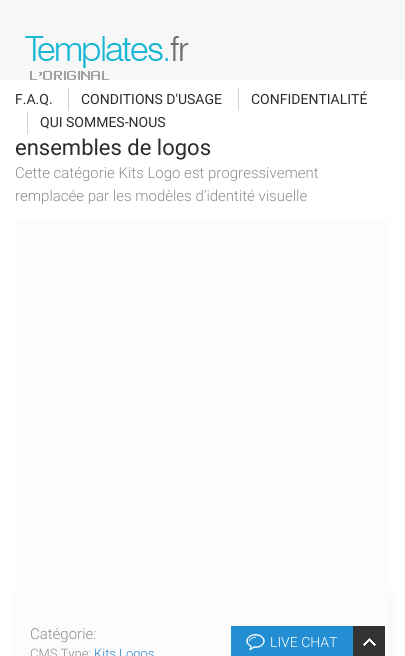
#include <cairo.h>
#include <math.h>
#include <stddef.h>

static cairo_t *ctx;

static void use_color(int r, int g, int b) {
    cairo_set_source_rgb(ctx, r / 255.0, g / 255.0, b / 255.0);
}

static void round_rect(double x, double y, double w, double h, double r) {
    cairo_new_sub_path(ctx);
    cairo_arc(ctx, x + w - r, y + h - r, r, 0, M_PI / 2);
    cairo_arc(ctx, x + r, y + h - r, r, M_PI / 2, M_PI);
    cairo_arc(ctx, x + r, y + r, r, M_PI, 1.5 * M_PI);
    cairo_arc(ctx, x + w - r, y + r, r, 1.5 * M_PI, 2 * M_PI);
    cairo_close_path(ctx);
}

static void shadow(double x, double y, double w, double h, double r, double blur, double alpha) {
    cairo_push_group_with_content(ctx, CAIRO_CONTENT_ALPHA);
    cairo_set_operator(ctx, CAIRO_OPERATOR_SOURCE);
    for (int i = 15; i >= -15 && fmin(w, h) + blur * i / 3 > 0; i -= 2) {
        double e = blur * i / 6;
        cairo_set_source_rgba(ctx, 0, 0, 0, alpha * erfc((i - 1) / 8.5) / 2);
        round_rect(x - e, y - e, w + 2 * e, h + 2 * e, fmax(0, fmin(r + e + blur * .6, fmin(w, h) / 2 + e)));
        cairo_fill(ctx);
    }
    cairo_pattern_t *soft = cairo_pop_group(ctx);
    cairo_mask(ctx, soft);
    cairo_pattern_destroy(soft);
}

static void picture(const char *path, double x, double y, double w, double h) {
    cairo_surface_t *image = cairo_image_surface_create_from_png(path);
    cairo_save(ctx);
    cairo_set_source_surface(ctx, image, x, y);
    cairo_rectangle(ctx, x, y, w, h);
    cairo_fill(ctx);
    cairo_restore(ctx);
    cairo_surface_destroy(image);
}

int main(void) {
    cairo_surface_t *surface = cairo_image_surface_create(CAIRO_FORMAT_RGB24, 405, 656);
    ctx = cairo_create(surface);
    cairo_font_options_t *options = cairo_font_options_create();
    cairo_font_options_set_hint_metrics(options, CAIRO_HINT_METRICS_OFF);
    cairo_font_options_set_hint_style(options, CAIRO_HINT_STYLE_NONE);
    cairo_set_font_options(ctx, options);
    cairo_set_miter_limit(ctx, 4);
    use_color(247, 247, 247);
    cairo_paint(ctx);
    picture("img1.png", 25, 36, 164, 44);
    use_color(255, 255, 255);
    cairo_rectangle(ctx, 0, 80, 405, 576);
    cairo_fill(ctx);
    cairo_select_font_face(ctx, "Roboto", CAIRO_FONT_SLANT_NORMAL, CAIRO_FONT_WEIGHT_NORMAL);
    cairo_set_font_size(ctx, 14);
    use_color(43, 43, 43);
    cairo_move_to(ctx, 15, 104);
    cairo_show_text(ctx, "F.A.Q.");
    use_color(209, 209, 209);
    cairo_rectangle(ctx, 68, 88, 1, 23);
    cairo_fill(ctx);
    use_color(43, 43, 43);
    cairo_move_to(ctx, 81, 104);
    cairo_show_text(ctx, "CONDITIONS D'USAGE");
    use_color(209, 209, 209);
    cairo_rectangle(ctx, 238, 88, 1, 23);
    cairo_fill(ctx);
    use_color(43, 43, 43);
    cairo_move_to(ctx, 251, 104);
    cairo_show_text(ctx, "CONFIDENTIALITÉ");
    use_color(209, 209, 209);
    cairo_rectangle(ctx, 27, 111, 1, 23);
    cairo_fill(ctx);
    use_color(43, 43, 43);
    cairo_move_to(ctx, 40, 127);
    cairo_show_text(ctx, "QUI SOMMES-NOUS");
    cairo_set_font_size(ctx, 22);
    cairo_move_to(ctx, 15, 155);
    cairo_show_text(ctx, "ensembles de logos");
    cairo_select_font_face(ctx, "Roboto Light", CAIRO_FONT_SLANT_NORMAL, CAIRO_FONT_WEIGHT_NORMAL);
    cairo_set_font_size(ctx, 15);
    use_color(140, 140, 140);
    cairo_move_to(ctx, 15, 178);
    cairo_show_text(ctx, "Cette catégorie Kits Logo est progressivement");
    cairo_move_to(ctx, 15, 201);
    cairo_show_text(ctx, "remplacée par les modèles d’identité visuelle");
    use_color(0, 0, 0);
    shadow(15, 593, 375, 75, 0, 4, 0.06);
    use_color(252, 252, 252);
    cairo_rectangle(ctx, 15, 218, 375, 438);
    cairo_fill(ctx);
    use_color(140, 140, 140);
    cairo_move_to(ctx, 30, 639);
    cairo_show_text(ctx, "Catégorie:");
    cairo_set_font_size(ctx, 13);
    cairo_move_to(ctx, 30, 658);
    cairo_show_text(ctx, "CMS Type:");
    use_color(38, 134, 205);
    cairo_move_to(ctx, 94, 658);
    cairo_show_text(ctx, "Kits Logos");
    use_color(35, 142, 210);
    cairo_rectangle(ctx, 231, 626, 122, 30);
    cairo_fill(ctx);
    picture("img2.png", 246, 634, 19, 17);
    cairo_set_font_size(ctx, 14);
    use_color(255, 255, 255);
    cairo_move_to(ctx, 270, 647);
    cairo_show_text(ctx, "LIVE CHAT");
    use_color(51, 51, 51);
    cairo_rectangle(ctx, 353, 626, 32, 30);
    cairo_fill(ctx);
    picture("img3.png", 363, 638, 13, 8);
    cairo_surface_write_to_png(surface, "result.png");
    cairo_font_options_destroy(options);
    cairo_destroy(ctx);
    cairo_surface_destroy(surface);
    return 0;
}
